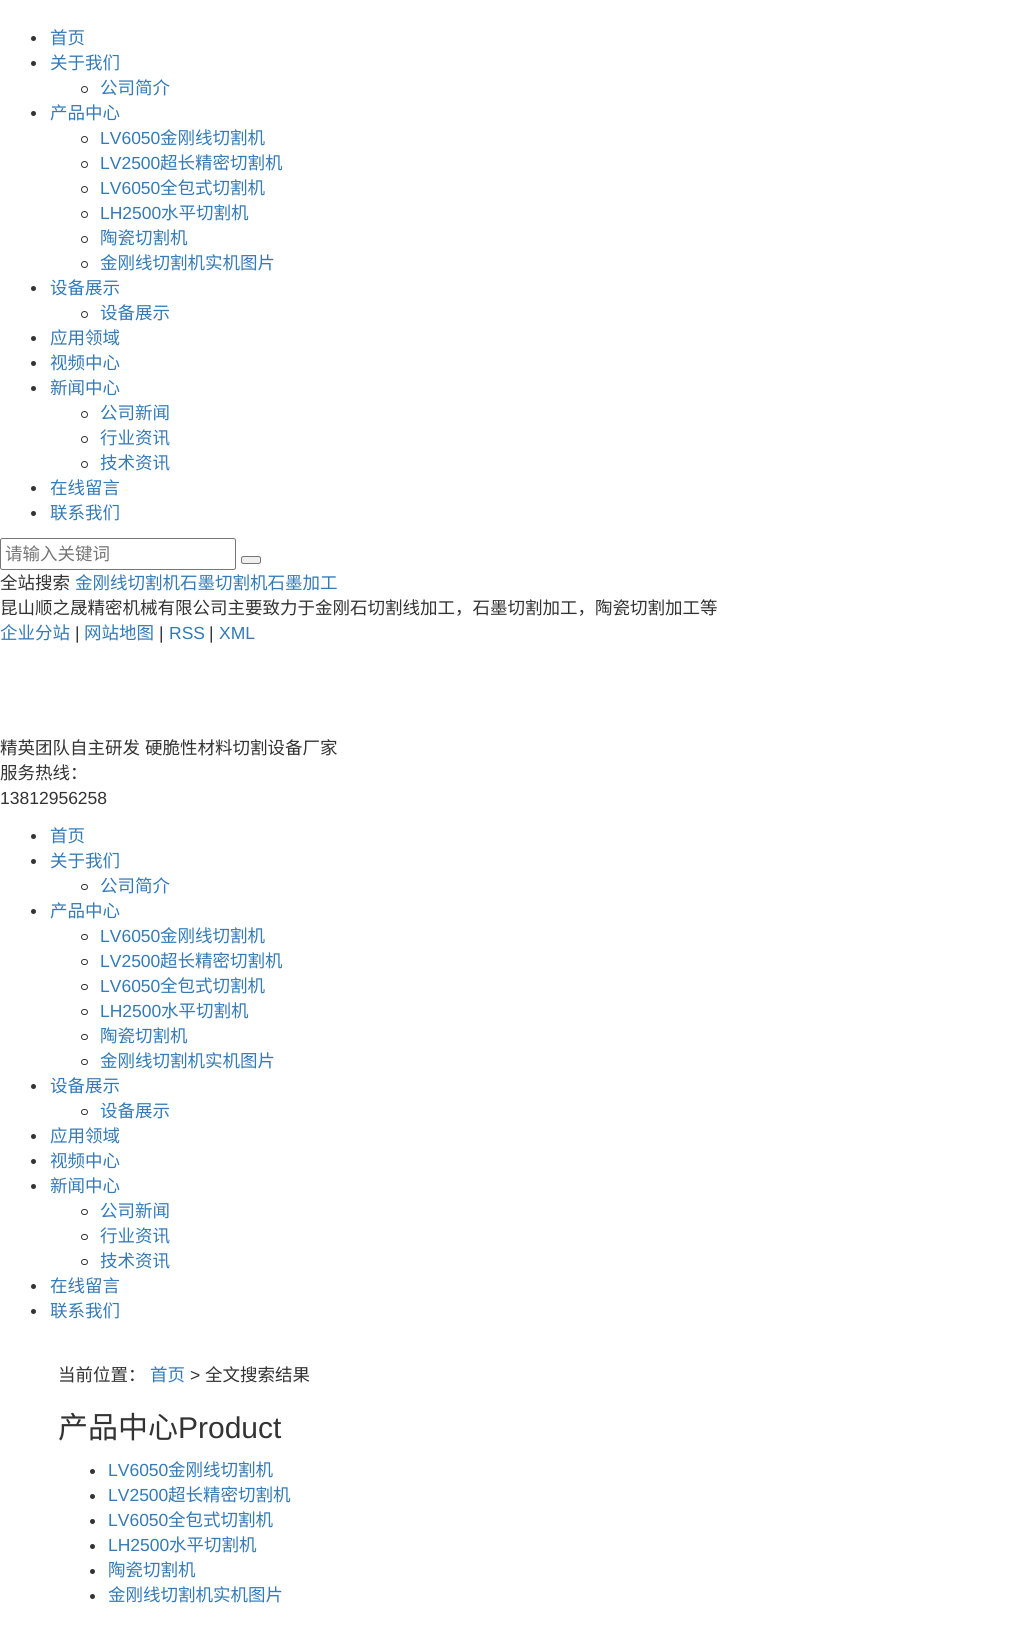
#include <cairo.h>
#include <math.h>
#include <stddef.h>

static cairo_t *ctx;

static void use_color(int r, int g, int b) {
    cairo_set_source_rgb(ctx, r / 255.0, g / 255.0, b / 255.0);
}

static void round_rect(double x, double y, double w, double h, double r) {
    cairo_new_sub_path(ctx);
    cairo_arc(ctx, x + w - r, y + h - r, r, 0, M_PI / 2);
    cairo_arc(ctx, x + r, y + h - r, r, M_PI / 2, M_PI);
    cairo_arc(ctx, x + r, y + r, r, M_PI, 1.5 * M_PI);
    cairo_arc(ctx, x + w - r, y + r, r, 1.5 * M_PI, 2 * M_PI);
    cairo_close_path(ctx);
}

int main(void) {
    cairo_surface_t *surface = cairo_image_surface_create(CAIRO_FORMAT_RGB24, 1016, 1634);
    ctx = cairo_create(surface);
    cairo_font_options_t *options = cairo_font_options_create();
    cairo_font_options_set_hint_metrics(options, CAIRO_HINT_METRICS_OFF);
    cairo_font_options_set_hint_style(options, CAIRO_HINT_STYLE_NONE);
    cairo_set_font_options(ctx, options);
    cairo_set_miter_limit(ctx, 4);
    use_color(255, 255, 255);
    cairo_paint(ctx);
    use_color(51, 51, 51);
    cairo_arc(ctx, 33.5, 38.5, 2.5, 0, 2 * M_PI);
    cairo_fill(ctx);
    cairo_select_font_face(ctx, "Noto Sans CJK SC", CAIRO_FONT_SLANT_NORMAL, CAIRO_FONT_WEIGHT_NORMAL);
    cairo_set_font_size(ctx, 17.5);
    use_color(51, 122, 183);
    cairo_move_to(ctx, 50, 44);
    cairo_show_text(ctx, "首页");
    use_color(51, 51, 51);
    cairo_new_path(ctx);
    cairo_arc(ctx, 33.5, 63.5, 2.5, 0, 2 * M_PI);
    cairo_fill(ctx);
    use_color(51, 122, 183);
    cairo_move_to(ctx, 50, 69);
    cairo_show_text(ctx, "关于我们");
    cairo_new_path(ctx);
    cairo_arc(ctx, 84.5, 89.5, 3, 0, 2 * M_PI);
    use_color(51, 51, 51);
    cairo_set_line_width(ctx, 1);
    cairo_stroke(ctx);
    use_color(51, 122, 183);
    cairo_move_to(ctx, 100, 94);
    cairo_show_text(ctx, "公司简介");
    use_color(51, 51, 51);
    cairo_new_path(ctx);
    cairo_arc(ctx, 33.5, 113.5, 2.5, 0, 2 * M_PI);
    cairo_fill(ctx);
    use_color(51, 122, 183);
    cairo_move_to(ctx, 50, 119);
    cairo_show_text(ctx, "产品中心");
    cairo_new_path(ctx);
    cairo_arc(ctx, 84.5, 139.5, 3, 0, 2 * M_PI);
    use_color(51, 51, 51);
    cairo_stroke(ctx);
    cairo_select_font_face(ctx, "Liberation Sans", CAIRO_FONT_SLANT_NORMAL, CAIRO_FONT_WEIGHT_NORMAL);
    use_color(51, 122, 183);
    cairo_move_to(ctx, 100, 144);
    cairo_show_text(ctx, "LV6050");
    cairo_select_font_face(ctx, "Noto Sans CJK SC", CAIRO_FONT_SLANT_NORMAL, CAIRO_FONT_WEIGHT_NORMAL);
    cairo_move_to(ctx, 160, 144);
    cairo_show_text(ctx, "金刚线切割机");
    cairo_new_path(ctx);
    cairo_arc(ctx, 84.5, 164.5, 3, 0, 2 * M_PI);
    use_color(51, 51, 51);
    cairo_stroke(ctx);
    cairo_select_font_face(ctx, "Liberation Sans", CAIRO_FONT_SLANT_NORMAL, CAIRO_FONT_WEIGHT_NORMAL);
    use_color(51, 122, 183);
    cairo_move_to(ctx, 100, 169);
    cairo_show_text(ctx, "LV2500");
    cairo_select_font_face(ctx, "Noto Sans CJK SC", CAIRO_FONT_SLANT_NORMAL, CAIRO_FONT_WEIGHT_NORMAL);
    cairo_move_to(ctx, 160, 169);
    cairo_show_text(ctx, "超长精密切割机");
    cairo_new_path(ctx);
    cairo_arc(ctx, 84.5, 189.5, 3, 0, 2 * M_PI);
    use_color(51, 51, 51);
    cairo_stroke(ctx);
    cairo_select_font_face(ctx, "Liberation Sans", CAIRO_FONT_SLANT_NORMAL, CAIRO_FONT_WEIGHT_NORMAL);
    use_color(51, 122, 183);
    cairo_move_to(ctx, 100, 194);
    cairo_show_text(ctx, "LV6050");
    cairo_select_font_face(ctx, "Noto Sans CJK SC", CAIRO_FONT_SLANT_NORMAL, CAIRO_FONT_WEIGHT_NORMAL);
    cairo_move_to(ctx, 160, 194);
    cairo_show_text(ctx, "全包式切割机");
    cairo_new_path(ctx);
    cairo_arc(ctx, 84.5, 214.5, 3, 0, 2 * M_PI);
    use_color(51, 51, 51);
    cairo_stroke(ctx);
    cairo_select_font_face(ctx, "Liberation Sans", CAIRO_FONT_SLANT_NORMAL, CAIRO_FONT_WEIGHT_NORMAL);
    use_color(51, 122, 183);
    cairo_move_to(ctx, 100, 219);
    cairo_show_text(ctx, "LH2500");
    cairo_select_font_face(ctx, "Noto Sans CJK SC", CAIRO_FONT_SLANT_NORMAL, CAIRO_FONT_WEIGHT_NORMAL);
    cairo_move_to(ctx, 161, 219);
    cairo_show_text(ctx, "水平切割机");
    cairo_new_path(ctx);
    cairo_arc(ctx, 84.5, 239.5, 3, 0, 2 * M_PI);
    use_color(51, 51, 51);
    cairo_stroke(ctx);
    use_color(51, 122, 183);
    cairo_move_to(ctx, 100, 244);
    cairo_show_text(ctx, "陶瓷切割机");
    cairo_new_path(ctx);
    cairo_arc(ctx, 84.5, 264.5, 3, 0, 2 * M_PI);
    use_color(51, 51, 51);
    cairo_stroke(ctx);
    use_color(51, 122, 183);
    cairo_move_to(ctx, 100, 269);
    cairo_show_text(ctx, "金刚线切割机实机图片");
    use_color(51, 51, 51);
    cairo_new_path(ctx);
    cairo_arc(ctx, 33.5, 288.5, 2.5, 0, 2 * M_PI);
    cairo_fill(ctx);
    use_color(51, 122, 183);
    cairo_move_to(ctx, 50, 294);
    cairo_show_text(ctx, "设备展示");
    cairo_new_path(ctx);
    cairo_arc(ctx, 84.5, 314.5, 3, 0, 2 * M_PI);
    use_color(51, 51, 51);
    cairo_stroke(ctx);
    use_color(51, 122, 183);
    cairo_move_to(ctx, 100, 319);
    cairo_show_text(ctx, "设备展示");
    use_color(51, 51, 51);
    cairo_new_path(ctx);
    cairo_arc(ctx, 33.5, 338.5, 2.5, 0, 2 * M_PI);
    cairo_fill(ctx);
    use_color(51, 122, 183);
    cairo_move_to(ctx, 50, 344);
    cairo_show_text(ctx, "应用领域");
    use_color(51, 51, 51);
    cairo_new_path(ctx);
    cairo_arc(ctx, 33.5, 363.5, 2.5, 0, 2 * M_PI);
    cairo_fill(ctx);
    use_color(51, 122, 183);
    cairo_move_to(ctx, 50, 369);
    cairo_show_text(ctx, "视频中心");
    use_color(51, 51, 51);
    cairo_new_path(ctx);
    cairo_arc(ctx, 33.5, 388.5, 2.5, 0, 2 * M_PI);
    cairo_fill(ctx);
    use_color(51, 122, 183);
    cairo_move_to(ctx, 50, 394);
    cairo_show_text(ctx, "新闻中心");
    cairo_new_path(ctx);
    cairo_arc(ctx, 84.5, 414.5, 3, 0, 2 * M_PI);
    use_color(51, 51, 51);
    cairo_stroke(ctx);
    use_color(51, 122, 183);
    cairo_move_to(ctx, 100, 419);
    cairo_show_text(ctx, "公司新闻");
    cairo_new_path(ctx);
    cairo_arc(ctx, 84.5, 439.5, 3, 0, 2 * M_PI);
    use_color(51, 51, 51);
    cairo_stroke(ctx);
    use_color(51, 122, 183);
    cairo_move_to(ctx, 100, 444);
    cairo_show_text(ctx, "行业资讯");
    cairo_new_path(ctx);
    cairo_arc(ctx, 84.5, 464.5, 3, 0, 2 * M_PI);
    use_color(51, 51, 51);
    cairo_stroke(ctx);
    use_color(51, 122, 183);
    cairo_move_to(ctx, 100, 469);
    cairo_show_text(ctx, "技术资讯");
    use_color(51, 51, 51);
    cairo_new_path(ctx);
    cairo_arc(ctx, 33.5, 488.5, 2.5, 0, 2 * M_PI);
    cairo_fill(ctx);
    use_color(51, 122, 183);
    cairo_move_to(ctx, 50, 494);
    cairo_show_text(ctx, "在线留言");
    use_color(51, 51, 51);
    cairo_new_path(ctx);
    cairo_arc(ctx, 33.5, 513.5, 2.5, 0, 2 * M_PI);
    cairo_fill(ctx);
    use_color(51, 122, 183);
    cairo_move_to(ctx, 50, 519);
    cairo_show_text(ctx, "联系我们");
    round_rect(0.5, 538.5, 235, 31, 2);
    use_color(118, 118, 118);
    cairo_stroke(ctx);
    use_color(117, 117, 117);
    cairo_move_to(ctx, 5, 560);
    cairo_show_text(ctx, "请输入关键词");
    use_color(239, 239, 239);
    round_rect(241.5, 556.5, 19, 7, 2);
    cairo_fill_preserve(ctx);
    use_color(118, 118, 118);
    cairo_stroke(ctx);
    use_color(51, 51, 51);
    cairo_move_to(ctx, 0, 589);
    cairo_show_text(ctx, "全站搜索");
    use_color(51, 122, 183);
    cairo_move_to(ctx, 75, 589);
    cairo_show_text(ctx, "金刚线切割机石墨切割机石墨加工");
    use_color(51, 51, 51);
    cairo_move_to(ctx, 0, 614);
    cairo_show_text(ctx, "昆山顺之晟精密机械有限公司主要致力于金刚石切割线加工，石墨切割加工，陶瓷切割加工等");
    use_color(51, 122, 183);
    cairo_move_to(ctx, 0, 639);
    cairo_show_text(ctx, "企业分站");
    cairo_select_font_face(ctx, "Liberation Sans", CAIRO_FONT_SLANT_NORMAL, CAIRO_FONT_WEIGHT_NORMAL);
    use_color(51, 51, 51);
    cairo_move_to(ctx, 75, 639);
    cairo_show_text(ctx, "|");
    cairo_select_font_face(ctx, "Noto Sans CJK SC", CAIRO_FONT_SLANT_NORMAL, CAIRO_FONT_WEIGHT_NORMAL);
    use_color(51, 122, 183);
    cairo_move_to(ctx, 84, 639);
    cairo_show_text(ctx, "网站地图");
    cairo_select_font_face(ctx, "Liberation Sans", CAIRO_FONT_SLANT_NORMAL, CAIRO_FONT_WEIGHT_NORMAL);
    use_color(51, 51, 51);
    cairo_move_to(ctx, 159, 639);
    cairo_show_text(ctx, "|");
    use_color(51, 122, 183);
    cairo_move_to(ctx, 169, 639);
    cairo_show_text(ctx, "RSS");
    use_color(51, 51, 51);
    cairo_move_to(ctx, 209, 639);
    cairo_show_text(ctx, "|");
    use_color(51, 122, 183);
    cairo_move_to(ctx, 219, 639);
    cairo_show_text(ctx, "XML");
    cairo_select_font_face(ctx, "Noto Sans CJK SC", CAIRO_FONT_SLANT_NORMAL, CAIRO_FONT_WEIGHT_NORMAL);
    use_color(51, 51, 51);
    cairo_move_to(ctx, 0, 754);
    cairo_show_text(ctx, "精英团队自主研发");
    cairo_move_to(ctx, 145, 754);
    cairo_show_text(ctx, "硬脆性材料切割设备厂家");
    cairo_move_to(ctx, 0, 779);
    cairo_show_text(ctx, "服务热线：");
    cairo_select_font_face(ctx, "Liberation Sans", CAIRO_FONT_SLANT_NORMAL, CAIRO_FONT_WEIGHT_NORMAL);
    cairo_move_to(ctx, 0, 804);
    cairo_show_text(ctx, "13812956258");
    cairo_new_path(ctx);
    cairo_arc(ctx, 33.5, 836.5, 2.5, 0, 2 * M_PI);
    cairo_fill(ctx);
    cairo_select_font_face(ctx, "Noto Sans CJK SC", CAIRO_FONT_SLANT_NORMAL, CAIRO_FONT_WEIGHT_NORMAL);
    use_color(51, 122, 183);
    cairo_move_to(ctx, 50, 842);
    cairo_show_text(ctx, "首页");
    use_color(51, 51, 51);
    cairo_new_path(ctx);
    cairo_arc(ctx, 33.5, 861.5, 2.5, 0, 2 * M_PI);
    cairo_fill(ctx);
    use_color(51, 122, 183);
    cairo_move_to(ctx, 50, 867);
    cairo_show_text(ctx, "关于我们");
    round_rect(81.5, 884.5, 6, 5, 2.5);
    use_color(51, 51, 51);
    cairo_stroke(ctx);
    use_color(51, 122, 183);
    cairo_move_to(ctx, 100, 892);
    cairo_show_text(ctx, "公司简介");
    use_color(51, 51, 51);
    cairo_new_path(ctx);
    cairo_arc(ctx, 33.5, 911.5, 2.5, 0, 2 * M_PI);
    cairo_fill(ctx);
    use_color(51, 122, 183);
    cairo_move_to(ctx, 50, 917);
    cairo_show_text(ctx, "产品中心");
    round_rect(81.5, 934.5, 6, 5, 2.5);
    use_color(51, 51, 51);
    cairo_stroke(ctx);
    cairo_select_font_face(ctx, "Liberation Sans", CAIRO_FONT_SLANT_NORMAL, CAIRO_FONT_WEIGHT_NORMAL);
    use_color(51, 122, 183);
    cairo_move_to(ctx, 100, 942);
    cairo_show_text(ctx, "LV6050");
    cairo_select_font_face(ctx, "Noto Sans CJK SC", CAIRO_FONT_SLANT_NORMAL, CAIRO_FONT_WEIGHT_NORMAL);
    cairo_move_to(ctx, 160, 942);
    cairo_show_text(ctx, "金刚线切割机");
    round_rect(81.5, 959.5, 6, 5, 2.5);
    use_color(51, 51, 51);
    cairo_stroke(ctx);
    cairo_select_font_face(ctx, "Liberation Sans", CAIRO_FONT_SLANT_NORMAL, CAIRO_FONT_WEIGHT_NORMAL);
    use_color(51, 122, 183);
    cairo_move_to(ctx, 100, 967);
    cairo_show_text(ctx, "LV2500");
    cairo_select_font_face(ctx, "Noto Sans CJK SC", CAIRO_FONT_SLANT_NORMAL, CAIRO_FONT_WEIGHT_NORMAL);
    cairo_move_to(ctx, 160, 967);
    cairo_show_text(ctx, "超长精密切割机");
    round_rect(81.5, 984.5, 6, 5, 2.5);
    use_color(51, 51, 51);
    cairo_stroke(ctx);
    cairo_select_font_face(ctx, "Liberation Sans", CAIRO_FONT_SLANT_NORMAL, CAIRO_FONT_WEIGHT_NORMAL);
    use_color(51, 122, 183);
    cairo_move_to(ctx, 100, 992);
    cairo_show_text(ctx, "LV6050");
    cairo_select_font_face(ctx, "Noto Sans CJK SC", CAIRO_FONT_SLANT_NORMAL, CAIRO_FONT_WEIGHT_NORMAL);
    cairo_move_to(ctx, 160, 992);
    cairo_show_text(ctx, "全包式切割机");
    round_rect(81.5, 1009.5, 6, 5, 2.5);
    use_color(51, 51, 51);
    cairo_stroke(ctx);
    cairo_select_font_face(ctx, "Liberation Sans", CAIRO_FONT_SLANT_NORMAL, CAIRO_FONT_WEIGHT_NORMAL);
    use_color(51, 122, 183);
    cairo_move_to(ctx, 100, 1017);
    cairo_show_text(ctx, "LH2500");
    cairo_select_font_face(ctx, "Noto Sans CJK SC", CAIRO_FONT_SLANT_NORMAL, CAIRO_FONT_WEIGHT_NORMAL);
    cairo_move_to(ctx, 161, 1017);
    cairo_show_text(ctx, "水平切割机");
    round_rect(81.5, 1034.5, 6, 5, 2.5);
    use_color(51, 51, 51);
    cairo_stroke(ctx);
    use_color(51, 122, 183);
    cairo_move_to(ctx, 100, 1042);
    cairo_show_text(ctx, "陶瓷切割机");
    round_rect(81.5, 1059.5, 6, 5, 2.5);
    use_color(51, 51, 51);
    cairo_stroke(ctx);
    use_color(51, 122, 183);
    cairo_move_to(ctx, 100, 1067);
    cairo_show_text(ctx, "金刚线切割机实机图片");
    use_color(51, 51, 51);
    cairo_new_path(ctx);
    cairo_arc(ctx, 33.5, 1086.5, 2.5, 0, 2 * M_PI);
    cairo_fill(ctx);
    use_color(51, 122, 183);
    cairo_move_to(ctx, 50, 1092);
    cairo_show_text(ctx, "设备展示");
    round_rect(81.5, 1109.5, 6, 5, 2.5);
    use_color(51, 51, 51);
    cairo_stroke(ctx);
    use_color(51, 122, 183);
    cairo_move_to(ctx, 100, 1117);
    cairo_show_text(ctx, "设备展示");
    use_color(51, 51, 51);
    cairo_new_path(ctx);
    cairo_arc(ctx, 33.5, 1136.5, 2.5, 0, 2 * M_PI);
    cairo_fill(ctx);
    use_color(51, 122, 183);
    cairo_move_to(ctx, 50, 1142);
    cairo_show_text(ctx, "应用领域");
    use_color(51, 51, 51);
    cairo_new_path(ctx);
    cairo_arc(ctx, 33.5, 1161.5, 2.5, 0, 2 * M_PI);
    cairo_fill(ctx);
    use_color(51, 122, 183);
    cairo_move_to(ctx, 50, 1167);
    cairo_show_text(ctx, "视频中心");
    use_color(51, 51, 51);
    cairo_new_path(ctx);
    cairo_arc(ctx, 33.5, 1186.5, 2.5, 0, 2 * M_PI);
    cairo_fill(ctx);
    use_color(51, 122, 183);
    cairo_move_to(ctx, 50, 1192);
    cairo_show_text(ctx, "新闻中心");
    round_rect(81.5, 1209.5, 6, 5, 2.5);
    use_color(51, 51, 51);
    cairo_stroke(ctx);
    use_color(51, 122, 183);
    cairo_move_to(ctx, 100, 1217);
    cairo_show_text(ctx, "公司新闻");
    round_rect(81.5, 1234.5, 6, 5, 2.5);
    use_color(51, 51, 51);
    cairo_stroke(ctx);
    use_color(51, 122, 183);
    cairo_move_to(ctx, 100, 1242);
    cairo_show_text(ctx, "行业资讯");
    round_rect(81.5, 1259.5, 6, 5, 2.5);
    use_color(51, 51, 51);
    cairo_stroke(ctx);
    use_color(51, 122, 183);
    cairo_move_to(ctx, 100, 1267);
    cairo_show_text(ctx, "技术资讯");
    use_color(51, 51, 51);
    cairo_new_path(ctx);
    cairo_arc(ctx, 33.5, 1286.5, 2.5, 0, 2 * M_PI);
    cairo_fill(ctx);
    use_color(51, 122, 183);
    cairo_move_to(ctx, 50, 1292);
    cairo_show_text(ctx, "在线留言");
    use_color(51, 51, 51);
    cairo_new_path(ctx);
    cairo_arc(ctx, 33.5, 1311.5, 2.5, 0, 2 * M_PI);
    cairo_fill(ctx);
    use_color(51, 122, 183);
    cairo_move_to(ctx, 50, 1317);
    cairo_show_text(ctx, "联系我们");
    use_color(51, 51, 51);
    cairo_move_to(ctx, 58, 1381);
    cairo_show_text(ctx, "当前位置：");
    use_color(51, 122, 183);
    cairo_move_to(ctx, 150, 1381);
    cairo_show_text(ctx, "首页");
    cairo_select_font_face(ctx, "Liberation Sans", CAIRO_FONT_SLANT_NORMAL, CAIRO_FONT_WEIGHT_NORMAL);
    use_color(51, 51, 51);
    cairo_move_to(ctx, 190, 1381);
    cairo_show_text(ctx, ">");
    cairo_select_font_face(ctx, "Noto Sans CJK SC", CAIRO_FONT_SLANT_NORMAL, CAIRO_FONT_WEIGHT_NORMAL);
    cairo_move_to(ctx, 205, 1381);
    cairo_show_text(ctx, "全文搜索结果");
    cairo_set_font_size(ctx, 30);
    cairo_move_to(ctx, 58, 1438);
    cairo_show_text(ctx, "产品中心");
    cairo_select_font_face(ctx, "Liberation Sans", CAIRO_FONT_SLANT_NORMAL, CAIRO_FONT_WEIGHT_NORMAL);
    cairo_move_to(ctx, 178, 1438);
    cairo_show_text(ctx, "Product");
    cairo_new_path(ctx);
    cairo_arc(ctx, 92.5, 1471.5, 2.5, 0, 2 * M_PI);
    cairo_fill(ctx);
    cairo_set_font_size(ctx, 17.5);
    use_color(51, 122, 183);
    cairo_move_to(ctx, 108, 1476);
    cairo_show_text(ctx, "LV6050");
    cairo_select_font_face(ctx, "Noto Sans CJK SC", CAIRO_FONT_SLANT_NORMAL, CAIRO_FONT_WEIGHT_NORMAL);
    cairo_move_to(ctx, 168, 1476);
    cairo_show_text(ctx, "金刚线切割机");
    use_color(51, 51, 51);
    cairo_new_path(ctx);
    cairo_arc(ctx, 92.5, 1496.5, 2.5, 0, 2 * M_PI);
    cairo_fill(ctx);
    cairo_select_font_face(ctx, "Liberation Sans", CAIRO_FONT_SLANT_NORMAL, CAIRO_FONT_WEIGHT_NORMAL);
    use_color(51, 122, 183);
    cairo_move_to(ctx, 108, 1501);
    cairo_show_text(ctx, "LV2500");
    cairo_select_font_face(ctx, "Noto Sans CJK SC", CAIRO_FONT_SLANT_NORMAL, CAIRO_FONT_WEIGHT_NORMAL);
    cairo_move_to(ctx, 168, 1501);
    cairo_show_text(ctx, "超长精密切割机");
    use_color(51, 51, 51);
    cairo_new_path(ctx);
    cairo_arc(ctx, 92.5, 1521.5, 2.5, 0, 2 * M_PI);
    cairo_fill(ctx);
    cairo_select_font_face(ctx, "Liberation Sans", CAIRO_FONT_SLANT_NORMAL, CAIRO_FONT_WEIGHT_NORMAL);
    use_color(51, 122, 183);
    cairo_move_to(ctx, 108, 1526);
    cairo_show_text(ctx, "LV6050");
    cairo_select_font_face(ctx, "Noto Sans CJK SC", CAIRO_FONT_SLANT_NORMAL, CAIRO_FONT_WEIGHT_NORMAL);
    cairo_move_to(ctx, 168, 1526);
    cairo_show_text(ctx, "全包式切割机");
    use_color(51, 51, 51);
    cairo_new_path(ctx);
    cairo_arc(ctx, 92.5, 1546.5, 2.5, 0, 2 * M_PI);
    cairo_fill(ctx);
    cairo_select_font_face(ctx, "Liberation Sans", CAIRO_FONT_SLANT_NORMAL, CAIRO_FONT_WEIGHT_NORMAL);
    use_color(51, 122, 183);
    cairo_move_to(ctx, 108, 1551);
    cairo_show_text(ctx, "LH2500");
    cairo_select_font_face(ctx, "Noto Sans CJK SC", CAIRO_FONT_SLANT_NORMAL, CAIRO_FONT_WEIGHT_NORMAL);
    cairo_move_to(ctx, 169, 1551);
    cairo_show_text(ctx, "水平切割机");
    use_color(51, 51, 51);
    cairo_new_path(ctx);
    cairo_arc(ctx, 92.5, 1571.5, 2.5, 0, 2 * M_PI);
    cairo_fill(ctx);
    use_color(51, 122, 183);
    cairo_move_to(ctx, 108, 1576);
    cairo_show_text(ctx, "陶瓷切割机");
    use_color(51, 51, 51);
    cairo_new_path(ctx);
    cairo_arc(ctx, 92.5, 1596.5, 2.5, 0, 2 * M_PI);
    cairo_fill(ctx);
    use_color(51, 122, 183);
    cairo_move_to(ctx, 108, 1601);
    cairo_show_text(ctx, "金刚线切割机实机图片");
    cairo_surface_write_to_png(surface, "result.png");
    cairo_font_options_destroy(options);
    cairo_destroy(ctx);
    cairo_surface_destroy(surface);
    return 0;
}
